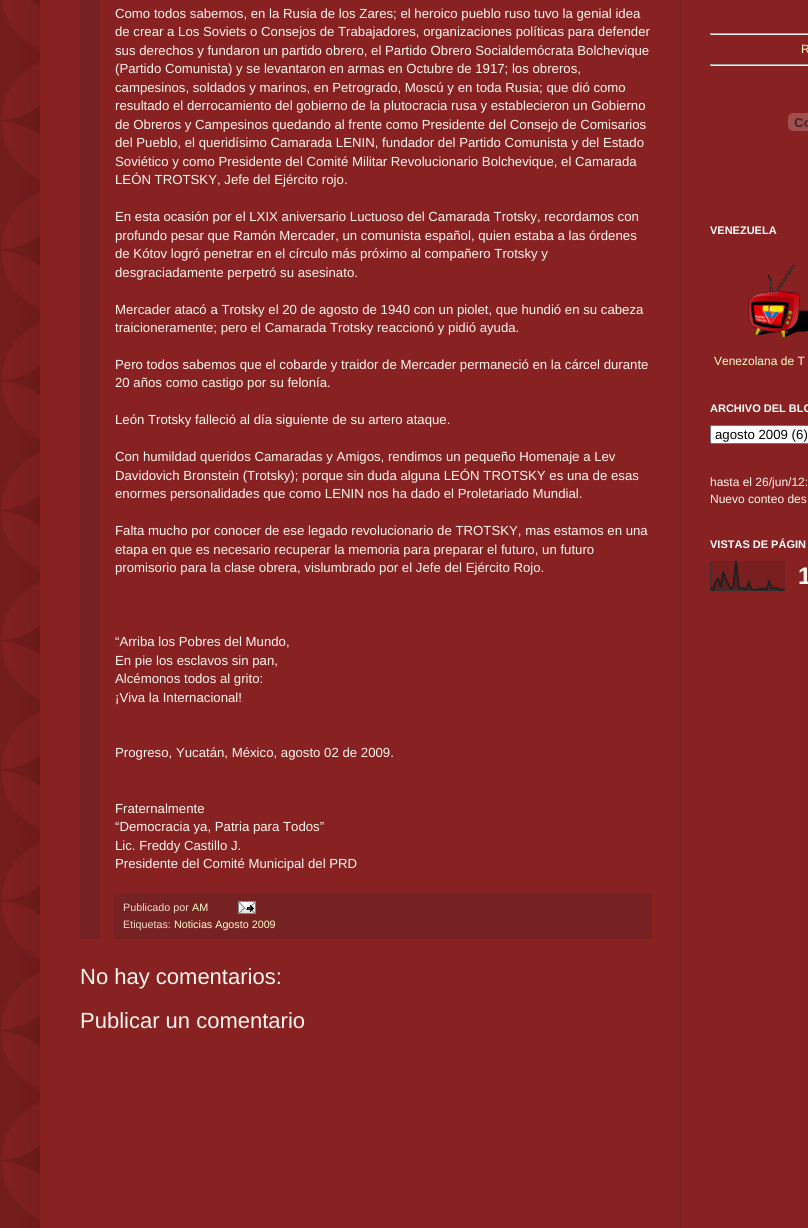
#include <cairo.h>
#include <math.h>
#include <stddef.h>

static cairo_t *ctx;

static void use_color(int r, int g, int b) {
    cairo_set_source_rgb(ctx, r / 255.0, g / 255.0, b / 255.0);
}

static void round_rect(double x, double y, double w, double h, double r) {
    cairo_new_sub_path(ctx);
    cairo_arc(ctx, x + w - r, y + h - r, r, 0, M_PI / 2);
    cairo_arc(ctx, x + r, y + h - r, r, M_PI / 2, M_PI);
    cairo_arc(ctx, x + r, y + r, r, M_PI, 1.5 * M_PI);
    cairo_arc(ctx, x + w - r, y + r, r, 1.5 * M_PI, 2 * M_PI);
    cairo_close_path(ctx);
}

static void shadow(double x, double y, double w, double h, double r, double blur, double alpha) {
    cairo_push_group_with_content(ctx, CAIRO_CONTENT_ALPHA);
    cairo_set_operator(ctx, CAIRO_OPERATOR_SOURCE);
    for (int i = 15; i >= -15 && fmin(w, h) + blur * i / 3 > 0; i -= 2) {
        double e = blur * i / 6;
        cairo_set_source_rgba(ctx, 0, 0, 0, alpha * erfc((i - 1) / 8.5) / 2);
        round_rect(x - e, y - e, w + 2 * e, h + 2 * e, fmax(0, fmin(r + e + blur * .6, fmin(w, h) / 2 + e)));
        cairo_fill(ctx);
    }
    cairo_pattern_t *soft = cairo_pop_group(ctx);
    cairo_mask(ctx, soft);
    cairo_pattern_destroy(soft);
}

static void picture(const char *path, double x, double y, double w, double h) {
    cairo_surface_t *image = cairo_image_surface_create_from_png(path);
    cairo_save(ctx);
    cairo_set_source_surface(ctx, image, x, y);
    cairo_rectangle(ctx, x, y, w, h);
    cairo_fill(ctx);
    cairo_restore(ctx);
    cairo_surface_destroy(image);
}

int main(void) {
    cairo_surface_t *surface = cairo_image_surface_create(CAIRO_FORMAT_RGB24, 808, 1228);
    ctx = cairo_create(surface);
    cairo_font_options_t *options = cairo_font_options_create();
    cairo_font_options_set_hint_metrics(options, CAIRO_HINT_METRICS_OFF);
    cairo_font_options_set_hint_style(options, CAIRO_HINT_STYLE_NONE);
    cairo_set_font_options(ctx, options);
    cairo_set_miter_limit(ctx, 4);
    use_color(136, 34, 34);
    cairo_paint(ctx);
    picture("img1.png", 0, 0, 40, 1228);
    use_color(0, 0, 0);
    shadow(40, -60, 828, 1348, 0, 20, 0.15);
    use_color(136, 34, 34);
    cairo_rectangle(ctx, 40, 0, 768, 1228);
    cairo_fill(ctx);
    use_color(119, 34, 34);
    cairo_rectangle(ctx, 680, 0, 1, 1228);
    cairo_fill(ctx);
    cairo_rectangle(ctx, 80, 0, 20, 939);
    cairo_fill(ctx);
    cairo_select_font_face(ctx, "Liberation Sans", CAIRO_FONT_SLANT_NORMAL, CAIRO_FONT_WEIGHT_NORMAL);
    cairo_set_font_size(ctx, 13.2);
    use_color(255, 245, 238);
    cairo_move_to(ctx, 115, 18);
    cairo_show_text(ctx, "Como todos sabemos, en la Rusia de los Zares; el heroico pueblo ruso tuvo la genial idea");
    cairo_move_to(ctx, 115, 36);
    cairo_show_text(ctx, "de crear a Los Soviets o Consejos de Trabajadores, organizaciones políticas para defender");
    cairo_move_to(ctx, 115, 55);
    cairo_show_text(ctx, "sus derechos y fundaron un partido obrero, el Partido Obrero Socialdemócrata Bolchevique");
    cairo_move_to(ctx, 115, 73);
    cairo_show_text(ctx, "(Partido Comunista) y se levantaron en armas en Octubre de 1917; los obreros,");
    cairo_move_to(ctx, 115, 92);
    cairo_show_text(ctx, "campesinos, soldados y marinos, en Petrogrado, Moscú y en toda Rusia; que dió como");
    cairo_move_to(ctx, 115, 110);
    cairo_show_text(ctx, "resultado el derrocamiento del gobierno de la plutocracia rusa y establecieron un Gobierno");
    cairo_move_to(ctx, 115, 129);
    cairo_show_text(ctx, "de Obreros y Campesinos quedando al frente como Presidente del Consejo de Comisarios");
    cairo_move_to(ctx, 115, 147);
    cairo_show_text(ctx, "del Pueblo, el queridísimo Camarada LENIN, fundador del Partido Comunista y del Estado");
    cairo_move_to(ctx, 115, 166);
    cairo_show_text(ctx, "Soviético y como Presidente del Comité Militar Revolucionario Bolchevique, el Camarada");
    cairo_move_to(ctx, 115, 184);
    cairo_show_text(ctx, "LEÓN TROTSKY, Jefe del Ejército rojo.");
    cairo_move_to(ctx, 115, 221);
    cairo_show_text(ctx, "En esta ocasión por el LXIX aniversario Luctuoso del Camarada Trotsky, recordamos con");
    cairo_move_to(ctx, 115, 240);
    cairo_show_text(ctx, "profundo pesar que Ramón Mercader, un comunista español, quien estaba a las órdenes");
    cairo_move_to(ctx, 115, 258);
    cairo_show_text(ctx, "de Kótov logró penetrar en el círculo más próximo al compañero Trotsky y");
    cairo_move_to(ctx, 115, 277);
    cairo_show_text(ctx, "desgraciadamente perpetró su asesinato.");
    cairo_move_to(ctx, 115, 314);
    cairo_show_text(ctx, "Mercader atacó a Trotsky el 20 de agosto de 1940 con un piolet, que hundió en su cabeza");
    cairo_move_to(ctx, 115, 332);
    cairo_show_text(ctx, "traicioneramente; pero el Camarada Trotsky reaccionó y pidió ayuda.");
    cairo_move_to(ctx, 115, 369);
    cairo_show_text(ctx, "Pero todos sabemos que el cobarde y traidor de Mercader permaneció en la cárcel durante");
    cairo_move_to(ctx, 115, 387);
    cairo_show_text(ctx, "20 años como castigo por su felonía.");
    cairo_move_to(ctx, 115, 424);
    cairo_show_text(ctx, "León Trotsky falleció al día siguiente de su artero ataque.");
    cairo_move_to(ctx, 115, 461);
    cairo_show_text(ctx, "Con humildad queridos Camaradas y Amigos, rendimos un pequeño Homenaje a Lev");
    cairo_move_to(ctx, 115, 480);
    cairo_show_text(ctx, "Davidovich Bronstein (Trotsky); porque sin duda alguna LEÓN TROTSKY es una de esas");
    cairo_move_to(ctx, 115, 498);
    cairo_show_text(ctx, "enormes personalidades que como LENIN nos ha dado el Proletariado Mundial.");
    cairo_move_to(ctx, 115, 535);
    cairo_show_text(ctx, "Falta mucho por conocer de ese legado revolucionario de TROTSKY, mas estamos en una");
    cairo_move_to(ctx, 115, 554);
    cairo_show_text(ctx, "etapa en que es necesario recuperar la memoria para preparar el futuro, un futuro");
    cairo_move_to(ctx, 115, 572);
    cairo_show_text(ctx, "promisorio para la clase obrera, vislumbrado por el Jefe del Ejército Rojo.");
    cairo_move_to(ctx, 115, 646);
    cairo_show_text(ctx, "“Arriba los Pobres del Mundo,");
    cairo_move_to(ctx, 115, 665);
    cairo_show_text(ctx, "En pie los esclavos sin pan,");
    cairo_move_to(ctx, 115, 683);
    cairo_show_text(ctx, "Alcémonos todos al grito:");
    cairo_move_to(ctx, 115, 702);
    cairo_show_text(ctx, "¡Viva la Internacional!");
    cairo_move_to(ctx, 115, 757);
    cairo_show_text(ctx, "Progreso, Yucatán, México, agosto 02 de 2009.");
    cairo_move_to(ctx, 115, 813);
    cairo_show_text(ctx, "Fraternalmente");
    cairo_move_to(ctx, 115, 831);
    cairo_show_text(ctx, "“Democracia ya, Patria para Todos”");
    cairo_move_to(ctx, 115, 850);
    cairo_show_text(ctx, "Lic. Freddy Castillo J.");
    cairo_move_to(ctx, 115, 868);
    cairo_show_text(ctx, "Presidente del Comité Municipal del PRD");
    use_color(119, 34, 34);
    cairo_rectangle(ctx, 113, 894, 539, 45);
    cairo_fill(ctx);
    cairo_set_font_size(ctx, 10.75);
    use_color(238, 221, 204);
    cairo_move_to(ctx, 123, 911);
    cairo_show_text(ctx, "Publicado por");
    use_color(255, 255, 204);
    cairo_move_to(ctx, 192, 911);
    cairo_show_text(ctx, "AM");
    picture("img2.png", 238, 901, 18, 13);
    use_color(238, 221, 204);
    cairo_move_to(ctx, 123, 928);
    cairo_show_text(ctx, "Etiquetas:");
    use_color(255, 255, 204);
    cairo_move_to(ctx, 174, 928);
    cairo_show_text(ctx, "Noticias Agosto 2009");
    cairo_set_font_size(ctx, 22);
    use_color(255, 245, 238);
    cairo_move_to(ctx, 80, 984);
    cairo_show_text(ctx, "No hay comentarios:");
    cairo_move_to(ctx, 80, 1028);
    cairo_show_text(ctx, "Publicar un comentario");
    use_color(159, 159, 159);
    cairo_rectangle(ctx, 710, 33, 98, 1);
    cairo_fill(ctx);
    use_color(238, 238, 238);
    cairo_rectangle(ctx, 710, 34, 98, 1);
    cairo_fill(ctx);
    use_color(159, 159, 159);
    cairo_rectangle(ctx, 710, 33, 1, 2);
    cairo_fill(ctx);
    cairo_set_font_size(ctx, 12);
    use_color(255, 255, 204);
    cairo_move_to(ctx, 801, 53);
    cairo_show_text(ctx, "R");
    use_color(159, 159, 159);
    cairo_rectangle(ctx, 710, 64, 98, 1);
    cairo_fill(ctx);
    use_color(238, 238, 238);
    cairo_rectangle(ctx, 710, 65, 98, 1);
    cairo_fill(ctx);
    use_color(159, 159, 159);
    cairo_rectangle(ctx, 710, 64, 1, 2);
    cairo_fill(ctx);
    picture("img3.png", 788, 113, 20, 18);
    cairo_select_font_face(ctx, "Liberation Sans", CAIRO_FONT_SLANT_NORMAL, CAIRO_FONT_WEIGHT_BOLD);
    cairo_set_font_size(ctx, 11);
    use_color(255, 255, 255);
    cairo_move_to(ctx, 710, 234);
    cairo_show_text(ctx, "VENEZUELA");
    picture("img4.png", 748, 265, 60, 73);
    cairo_select_font_face(ctx, "Liberation Sans", CAIRO_FONT_SLANT_NORMAL, CAIRO_FONT_WEIGHT_NORMAL);
    cairo_set_font_size(ctx, 12);
    use_color(255, 255, 204);
    cairo_move_to(ctx, 714, 365);
    cairo_show_text(ctx, "Venezolana de T");
    cairo_select_font_face(ctx, "Liberation Sans", CAIRO_FONT_SLANT_NORMAL, CAIRO_FONT_WEIGHT_BOLD);
    cairo_set_font_size(ctx, 11);
    use_color(255, 255, 255);
    cairo_move_to(ctx, 710, 412);
    cairo_show_text(ctx, "ARCHIVO DEL BLO");
    round_rect(710.5, 425.5, 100, 18, 1.5);
    cairo_fill_preserve(ctx);
    use_color(118, 118, 118);
    cairo_set_line_width(ctx, 1);
    cairo_stroke(ctx);
    cairo_select_font_face(ctx, "Liberation Sans", CAIRO_FONT_SLANT_NORMAL, CAIRO_FONT_WEIGHT_NORMAL);
    cairo_set_font_size(ctx, 13.25);
    use_color(0, 0, 0);
    cairo_move_to(ctx, 715, 439);
    cairo_show_text(ctx, "agosto 2009 (6)");
    cairo_set_font_size(ctx, 12);
    use_color(255, 245, 238);
    cairo_move_to(ctx, 710, 486);
    cairo_show_text(ctx, "hasta el 26/jun/12:");
    cairo_move_to(ctx, 710, 503);
    cairo_show_text(ctx, "Nuevo conteo des");
    cairo_select_font_face(ctx, "Liberation Sans", CAIRO_FONT_SLANT_NORMAL, CAIRO_FONT_WEIGHT_BOLD);
    cairo_set_font_size(ctx, 11);
    use_color(255, 255, 255);
    cairo_move_to(ctx, 710, 548);
    cairo_show_text(ctx, "VISTAS DE PÁGIN");
    picture("img5.png", 710, 561, 75, 30);
    cairo_set_font_size(ctx, 24);
    use_color(255, 245, 238);
    cairo_move_to(ctx, 798, 584);
    cairo_show_text(ctx, "1");
    cairo_surface_write_to_png(surface, "result.png");
    cairo_font_options_destroy(options);
    cairo_destroy(ctx);
    cairo_surface_destroy(surface);
    return 0;
}
